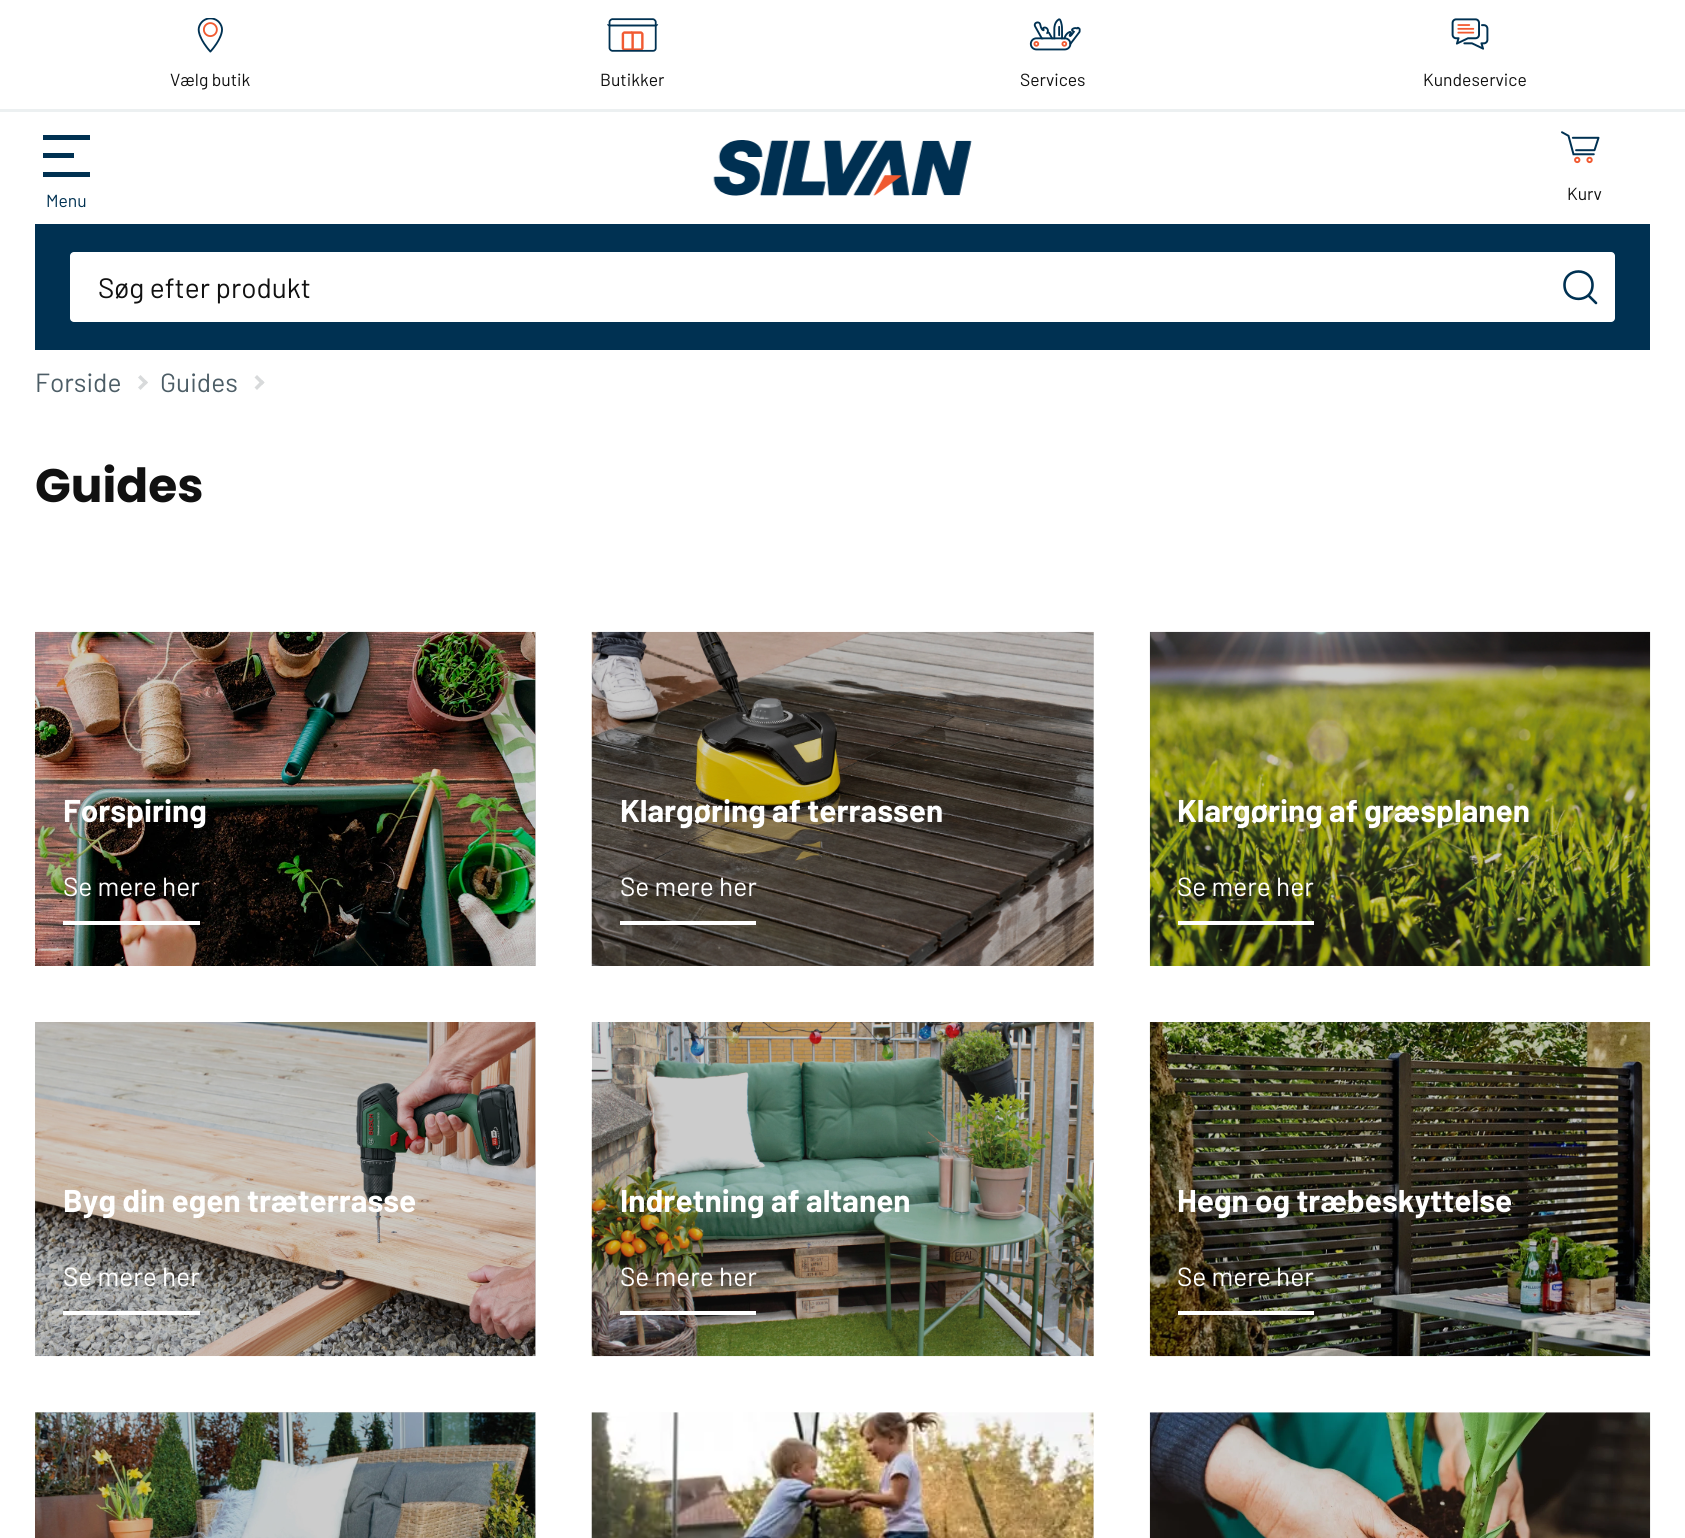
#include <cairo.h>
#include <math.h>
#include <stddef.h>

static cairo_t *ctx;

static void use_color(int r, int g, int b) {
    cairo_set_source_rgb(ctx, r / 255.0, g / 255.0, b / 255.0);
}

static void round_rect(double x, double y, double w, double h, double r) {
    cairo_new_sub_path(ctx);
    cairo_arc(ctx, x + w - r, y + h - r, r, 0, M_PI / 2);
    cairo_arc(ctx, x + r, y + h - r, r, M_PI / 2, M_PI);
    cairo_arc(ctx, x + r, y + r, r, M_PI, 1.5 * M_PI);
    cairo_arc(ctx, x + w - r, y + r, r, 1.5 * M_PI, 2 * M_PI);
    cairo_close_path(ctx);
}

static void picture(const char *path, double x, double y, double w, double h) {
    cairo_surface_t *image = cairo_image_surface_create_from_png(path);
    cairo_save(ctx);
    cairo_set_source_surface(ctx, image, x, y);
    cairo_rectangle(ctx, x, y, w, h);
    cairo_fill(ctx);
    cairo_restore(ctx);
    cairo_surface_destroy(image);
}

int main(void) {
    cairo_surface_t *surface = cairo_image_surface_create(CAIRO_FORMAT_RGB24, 1685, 1538);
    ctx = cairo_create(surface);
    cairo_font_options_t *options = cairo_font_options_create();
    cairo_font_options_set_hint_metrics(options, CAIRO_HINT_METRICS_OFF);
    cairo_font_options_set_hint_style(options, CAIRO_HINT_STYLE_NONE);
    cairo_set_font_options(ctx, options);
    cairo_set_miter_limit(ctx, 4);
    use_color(255, 255, 255);
    cairo_paint(ctx);
    use_color(204, 204, 204);
    cairo_rectangle(ctx, 35, 1412, 501, 126);
    cairo_fill(ctx);
    cairo_rectangle(ctx, 1093, 1022, 1, 334);
    cairo_fill(ctx);
    cairo_rectangle(ctx, 535, 1022, 1, 334);
    cairo_fill(ctx);
    cairo_rectangle(ctx, 1093, 632, 1, 334);
    cairo_fill(ctx);
    cairo_rectangle(ctx, 535, 632, 1, 334);
    cairo_fill(ctx);
    use_color(236, 240, 241);
    cairo_rectangle(ctx, 0, 109, 1685, 3);
    cairo_fill(ctx);
    picture("img1.png", 197, 18, 26, 35);
    cairo_select_font_face(ctx, "Barlow", CAIRO_FONT_SLANT_NORMAL, CAIRO_FONT_WEIGHT_NORMAL);
    cairo_set_font_size(ctx, 17.5);
    use_color(17, 17, 17);
    cairo_move_to(ctx, 170, 86);
    cairo_show_text(ctx, "Vælg butik");
    picture("img2.png", 607, 18, 52, 34);
    cairo_move_to(ctx, 600, 86);
    cairo_show_text(ctx, "Butikker");
    picture("img3.png", 1029, 18, 52, 33);
    cairo_move_to(ctx, 1020, 86);
    cairo_show_text(ctx, "Services");
    picture("img4.png", 1451, 18, 38, 32);
    cairo_move_to(ctx, 1423, 86);
    cairo_show_text(ctx, "Kundeservice");
    use_color(0, 49, 82);
    cairo_new_path(ctx);
    cairo_move_to(ctx, 43, 135);
    cairo_line_to(ctx, 90, 135);
    cairo_line_to(ctx, 90, 140);
    cairo_line_to(ctx, 43, 140);
    cairo_close_path(ctx);
    cairo_move_to(ctx, 43, 153);
    cairo_line_to(ctx, 74, 153);
    cairo_line_to(ctx, 74, 158);
    cairo_line_to(ctx, 43, 158);
    cairo_close_path(ctx);
    cairo_move_to(ctx, 43, 172);
    cairo_line_to(ctx, 90, 172);
    cairo_line_to(ctx, 90, 177);
    cairo_line_to(ctx, 43, 177);
    cairo_close_path(ctx);
    cairo_fill(ctx);
    cairo_move_to(ctx, 46, 207);
    cairo_show_text(ctx, "Menu");
    picture("img5.png", 713, 140, 259, 56);
    picture("img6.png", 1561, 131, 39, 33);
    use_color(17, 17, 17);
    cairo_move_to(ctx, 1567, 200);
    cairo_show_text(ctx, "Kurv");
    use_color(0, 49, 82);
    cairo_rectangle(ctx, 35, 224, 1615, 126);
    cairo_fill(ctx);
    use_color(255, 255, 255);
    round_rect(70, 252, 1545, 70, 4);
    cairo_fill(ctx);
    cairo_set_font_size(ctx, 28);
    use_color(17, 17, 17);
    cairo_move_to(ctx, 98, 298);
    cairo_show_text(ctx, "Søg efter produkt");
    cairo_new_path(ctx);
    cairo_move_to(ctx, 1589, 296);
    cairo_line_to(ctx, 1596, 303);
    cairo_move_to(ctx, 1564.5, 285);
    cairo_curve_to(ctx, 1564.5, 303.5, 1592.5, 303.5, 1592.5, 285);
    cairo_curve_to(ctx, 1592.5, 267, 1564.5, 267, 1564.5, 285);
    use_color(0, 49, 82);
    cairo_set_line_width(ctx, 2.6);
    cairo_set_line_cap(ctx, CAIRO_LINE_CAP_ROUND);
    cairo_set_line_join(ctx, CAIRO_LINE_JOIN_ROUND);
    cairo_stroke(ctx);
    cairo_set_font_size(ctx, 26.25);
    use_color(76, 93, 102);
    cairo_move_to(ctx, 35, 392);
    cairo_show_text(ctx, "Forside");
    use_color(216, 218, 219);
    cairo_new_path(ctx);
    cairo_move_to(ctx, 145.5, 385);
    cairo_line_to(ctx, 138, 377.5);
    cairo_line_to(ctx, 140.5, 375);
    cairo_line_to(ctx, 148, 382.5);
    cairo_close_path(ctx);
    cairo_fill(ctx);
    cairo_new_path(ctx);
    cairo_move_to(ctx, 140.5, 390);
    cairo_line_to(ctx, 138, 387.5);
    cairo_line_to(ctx, 145.5, 380);
    cairo_line_to(ctx, 148, 382.5);
    cairo_close_path(ctx);
    cairo_fill(ctx);
    use_color(76, 93, 102);
    cairo_move_to(ctx, 160, 392);
    cairo_show_text(ctx, "Guides");
    use_color(216, 218, 219);
    cairo_new_path(ctx);
    cairo_move_to(ctx, 262, 385);
    cairo_line_to(ctx, 254.5, 377.5);
    cairo_line_to(ctx, 257, 375);
    cairo_line_to(ctx, 264.5, 382.5);
    cairo_close_path(ctx);
    cairo_fill(ctx);
    cairo_new_path(ctx);
    cairo_move_to(ctx, 257, 390);
    cairo_line_to(ctx, 254.5, 387.5);
    cairo_line_to(ctx, 262, 380);
    cairo_line_to(ctx, 264.5, 382.5);
    cairo_close_path(ctx);
    cairo_fill(ctx);
    cairo_select_font_face(ctx, "Poppins", CAIRO_FONT_SLANT_NORMAL, CAIRO_FONT_WEIGHT_BOLD);
    cairo_set_font_size(ctx, 47);
    use_color(17, 17, 17);
    cairo_move_to(ctx, 35, 502);
    cairo_show_text(ctx, "Guides");
    picture("img7.png", 35, 631, 501, 335);
    cairo_select_font_face(ctx, "Barlow", CAIRO_FONT_SLANT_NORMAL, CAIRO_FONT_WEIGHT_BOLD);
    cairo_set_font_size(ctx, 31.5);
    use_color(255, 255, 255);
    cairo_move_to(ctx, 63, 822);
    cairo_show_text(ctx, "Forspiring");
    cairo_rectangle(ctx, 63, 921, 137, 4);
    cairo_fill(ctx);
    cairo_select_font_face(ctx, "Barlow", CAIRO_FONT_SLANT_NORMAL, CAIRO_FONT_WEIGHT_NORMAL);
    cairo_set_font_size(ctx, 26.25);
    cairo_move_to(ctx, 63, 896);
    cairo_show_text(ctx, "Se mere her");
    picture("img8.png", 591, 631, 503, 335);
    cairo_select_font_face(ctx, "Barlow", CAIRO_FONT_SLANT_NORMAL, CAIRO_FONT_WEIGHT_BOLD);
    cairo_set_font_size(ctx, 31.5);
    cairo_move_to(ctx, 620, 822);
    cairo_show_text(ctx, "Klargøring af terrassen");
    cairo_rectangle(ctx, 620, 921, 136, 4);
    cairo_fill(ctx);
    cairo_select_font_face(ctx, "Barlow", CAIRO_FONT_SLANT_NORMAL, CAIRO_FONT_WEIGHT_NORMAL);
    cairo_set_font_size(ctx, 26.25);
    cairo_move_to(ctx, 620, 896);
    cairo_show_text(ctx, "Se mere her");
    picture("img9.png", 1149, 631, 502, 335);
    cairo_select_font_face(ctx, "Barlow", CAIRO_FONT_SLANT_NORMAL, CAIRO_FONT_WEIGHT_BOLD);
    cairo_set_font_size(ctx, 31.5);
    cairo_move_to(ctx, 1177, 822);
    cairo_show_text(ctx, "Klargøring af græsplanen");
    cairo_rectangle(ctx, 1178, 921, 136, 4);
    cairo_fill(ctx);
    cairo_select_font_face(ctx, "Barlow", CAIRO_FONT_SLANT_NORMAL, CAIRO_FONT_WEIGHT_NORMAL);
    cairo_set_font_size(ctx, 26.25);
    cairo_move_to(ctx, 1177, 896);
    cairo_show_text(ctx, "Se mere her");
    picture("img10.png", 35, 1022, 501, 335);
    cairo_select_font_face(ctx, "Barlow", CAIRO_FONT_SLANT_NORMAL, CAIRO_FONT_WEIGHT_BOLD);
    cairo_set_font_size(ctx, 31.5);
    cairo_move_to(ctx, 63, 1212);
    cairo_show_text(ctx, "Byg din egen træterrasse");
    cairo_rectangle(ctx, 63, 1311, 137, 4);
    cairo_fill(ctx);
    cairo_select_font_face(ctx, "Barlow", CAIRO_FONT_SLANT_NORMAL, CAIRO_FONT_WEIGHT_NORMAL);
    cairo_set_font_size(ctx, 26.25);
    cairo_move_to(ctx, 63, 1286);
    cairo_show_text(ctx, "Se mere her");
    picture("img11.png", 591, 1022, 503, 335);
    cairo_select_font_face(ctx, "Barlow", CAIRO_FONT_SLANT_NORMAL, CAIRO_FONT_WEIGHT_BOLD);
    cairo_set_font_size(ctx, 31.5);
    cairo_move_to(ctx, 620, 1212);
    cairo_show_text(ctx, "Indretning af altanen");
    cairo_rectangle(ctx, 620, 1311, 136, 4);
    cairo_fill(ctx);
    cairo_select_font_face(ctx, "Barlow", CAIRO_FONT_SLANT_NORMAL, CAIRO_FONT_WEIGHT_NORMAL);
    cairo_set_font_size(ctx, 26.25);
    cairo_move_to(ctx, 620, 1286);
    cairo_show_text(ctx, "Se mere her");
    picture("img12.png", 1149, 1022, 502, 335);
    cairo_select_font_face(ctx, "Barlow", CAIRO_FONT_SLANT_NORMAL, CAIRO_FONT_WEIGHT_BOLD);
    cairo_set_font_size(ctx, 31.5);
    cairo_move_to(ctx, 1177, 1212);
    cairo_show_text(ctx, "Hegn og træbeskyttelse");
    cairo_rectangle(ctx, 1178, 1311, 136, 4);
    cairo_fill(ctx);
    cairo_select_font_face(ctx, "Barlow", CAIRO_FONT_SLANT_NORMAL, CAIRO_FONT_WEIGHT_NORMAL);
    cairo_set_font_size(ctx, 26.25);
    cairo_move_to(ctx, 1177, 1286);
    cairo_show_text(ctx, "Se mere her");
    picture("img13.png", 35, 1412, 501, 126);
    picture("img14.png", 591, 1412, 503, 126);
    picture("img15.png", 1149, 1412, 502, 126);
    cairo_surface_write_to_png(surface, "result.png");
    cairo_font_options_destroy(options);
    cairo_destroy(ctx);
    cairo_surface_destroy(surface);
    return 0;
}
